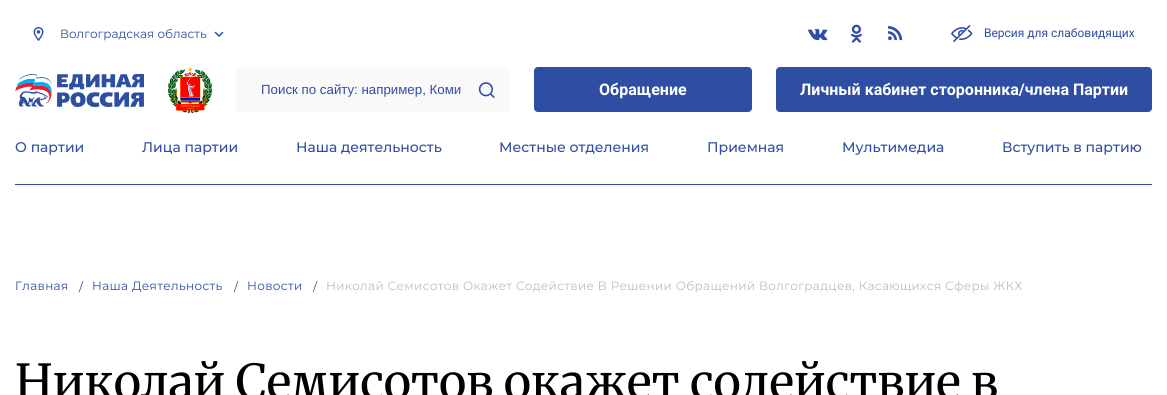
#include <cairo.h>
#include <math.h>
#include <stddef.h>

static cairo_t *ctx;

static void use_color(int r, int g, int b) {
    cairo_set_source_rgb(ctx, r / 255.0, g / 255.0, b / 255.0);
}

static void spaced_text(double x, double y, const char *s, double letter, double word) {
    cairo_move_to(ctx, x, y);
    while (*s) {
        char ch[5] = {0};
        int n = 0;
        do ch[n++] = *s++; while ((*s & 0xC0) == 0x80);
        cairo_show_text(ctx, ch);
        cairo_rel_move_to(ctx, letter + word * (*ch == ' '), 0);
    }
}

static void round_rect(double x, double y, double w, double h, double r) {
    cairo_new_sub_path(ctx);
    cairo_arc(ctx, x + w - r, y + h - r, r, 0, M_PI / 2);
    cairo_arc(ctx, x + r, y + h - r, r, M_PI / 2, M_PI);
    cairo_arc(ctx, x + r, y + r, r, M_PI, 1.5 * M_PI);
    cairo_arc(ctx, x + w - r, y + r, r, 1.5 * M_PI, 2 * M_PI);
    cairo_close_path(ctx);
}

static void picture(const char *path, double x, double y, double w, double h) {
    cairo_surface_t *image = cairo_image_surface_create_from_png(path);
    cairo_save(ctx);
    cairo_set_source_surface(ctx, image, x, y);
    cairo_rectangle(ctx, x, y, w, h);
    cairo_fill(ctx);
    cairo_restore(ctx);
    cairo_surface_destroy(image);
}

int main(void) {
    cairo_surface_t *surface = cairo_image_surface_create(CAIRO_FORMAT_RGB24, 1167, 395);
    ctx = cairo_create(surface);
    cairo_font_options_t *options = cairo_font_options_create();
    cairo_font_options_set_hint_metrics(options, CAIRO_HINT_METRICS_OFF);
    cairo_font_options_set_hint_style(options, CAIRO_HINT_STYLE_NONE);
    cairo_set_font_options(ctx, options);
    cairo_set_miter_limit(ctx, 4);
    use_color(255, 255, 255);
    cairo_paint(ctx);
    picture("img1.png", 33, 27, 11, 14);
    cairo_select_font_face(ctx, "Montserrat", CAIRO_FONT_SLANT_NORMAL, CAIRO_FONT_WEIGHT_NORMAL);
    cairo_set_font_size(ctx, 12);
    use_color(46, 78, 164);
    cairo_move_to(ctx, 60, 38);
    cairo_show_text(ctx, "Волгоградская область");
    picture("img2.png", 214, 31, 10, 6);
    picture("img3.png", 808, 29, 20, 12);
    picture("img4.png", 851, 24, 11, 19);
    picture("img5.png", 888, 26, 15, 15);
    picture("img6.png", 951, 25, 22, 17);
    cairo_select_font_face(ctx, "Roboto", CAIRO_FONT_SLANT_NORMAL, CAIRO_FONT_WEIGHT_NORMAL);
    cairo_move_to(ctx, 984, 37);
    cairo_show_text(ctx, "Версия для слабовидящих");
    picture("img7.png", 15, 74, 129, 33);
    picture("img8.png", 168, 67, 44, 46);
    use_color(249, 249, 249);
    round_rect(236, 67, 274, 45, 4);
    cairo_fill(ctx);
    cairo_select_font_face(ctx, "Liberation Sans", CAIRO_FONT_SLANT_NORMAL, CAIRO_FONT_WEIGHT_NORMAL);
    cairo_set_font_size(ctx, 13.3);
    use_color(46, 78, 164);
    cairo_move_to(ctx, 261, 94);
    cairo_show_text(ctx, "Поиск по сайту: например, Коми");
    picture("img9.png", 478, 82, 17, 16);
    round_rect(534, 67, 218, 45, 4);
    cairo_fill(ctx);
    cairo_select_font_face(ctx, "Roboto", CAIRO_FONT_SLANT_NORMAL, CAIRO_FONT_WEIGHT_BOLD);
    cairo_set_font_size(ctx, 16);
    use_color(255, 255, 255);
    cairo_move_to(ctx, 599, 95);
    cairo_show_text(ctx, "Обращение");
    use_color(46, 78, 164);
    round_rect(776, 67, 376, 45, 4);
    cairo_fill(ctx);
    use_color(255, 255, 255);
    cairo_move_to(ctx, 800, 95);
    cairo_show_text(ctx, "Личный кабинет сторонника/члена Партии");
    use_color(46, 78, 164);
    cairo_rectangle(ctx, 15, 184, 1137, 1);
    cairo_fill(ctx);
    cairo_select_font_face(ctx, "Montserrat Medium", CAIRO_FONT_SLANT_NORMAL, CAIRO_FONT_WEIGHT_NORMAL);
    cairo_set_font_size(ctx, 14);
    cairo_move_to(ctx, 15, 152);
    cairo_show_text(ctx, "О партии");
    cairo_move_to(ctx, 142, 152);
    cairo_show_text(ctx, "Лица партии");
    cairo_move_to(ctx, 296, 152);
    cairo_show_text(ctx, "Наша деятельность");
    cairo_move_to(ctx, 499, 152);
    cairo_show_text(ctx, "Местные отделения");
    cairo_move_to(ctx, 707, 152);
    cairo_show_text(ctx, "Приемная");
    cairo_move_to(ctx, 842, 152);
    cairo_show_text(ctx, "Мультимедиа");
    cairo_move_to(ctx, 1002, 152);
    cairo_show_text(ctx, "Вступить в партию");
    cairo_select_font_face(ctx, "Montserrat", CAIRO_FONT_SLANT_NORMAL, CAIRO_FONT_WEIGHT_NORMAL);
    cairo_set_font_size(ctx, 12);
    spaced_text(15, 290, "Главная", 0.35, 0);
    spaced_text(79, 291, "/", 0.35, 0);
    spaced_text(92, 290, "Наша Деятельность", 0.35, 0);
    spaced_text(234, 291, "/", 0.35, 0);
    spaced_text(247, 290, "Новости", 0.35, 0);
    spaced_text(313, 291, "/", 0.35, 0);
    use_color(189, 189, 189);
    spaced_text(326, 290, "Николай Семисотов Окажет Содействие В Решении Обращений Волгоградцев, Касающихся Сферы ЖКХ", 0.35, 0);
    cairo_select_font_face(ctx, "Merriweather", CAIRO_FONT_SLANT_NORMAL, CAIRO_FONT_WEIGHT_NORMAL);
    cairo_set_font_size(ctx, 48);
    use_color(0, 0, 0);
    cairo_move_to(ctx, 15, 399);
    cairo_show_text(ctx, "Николай Семисотов окажет содействие в");
    cairo_surface_write_to_png(surface, "result.png");
    cairo_font_options_destroy(options);
    cairo_destroy(ctx);
    cairo_surface_destroy(surface);
    return 0;
}
